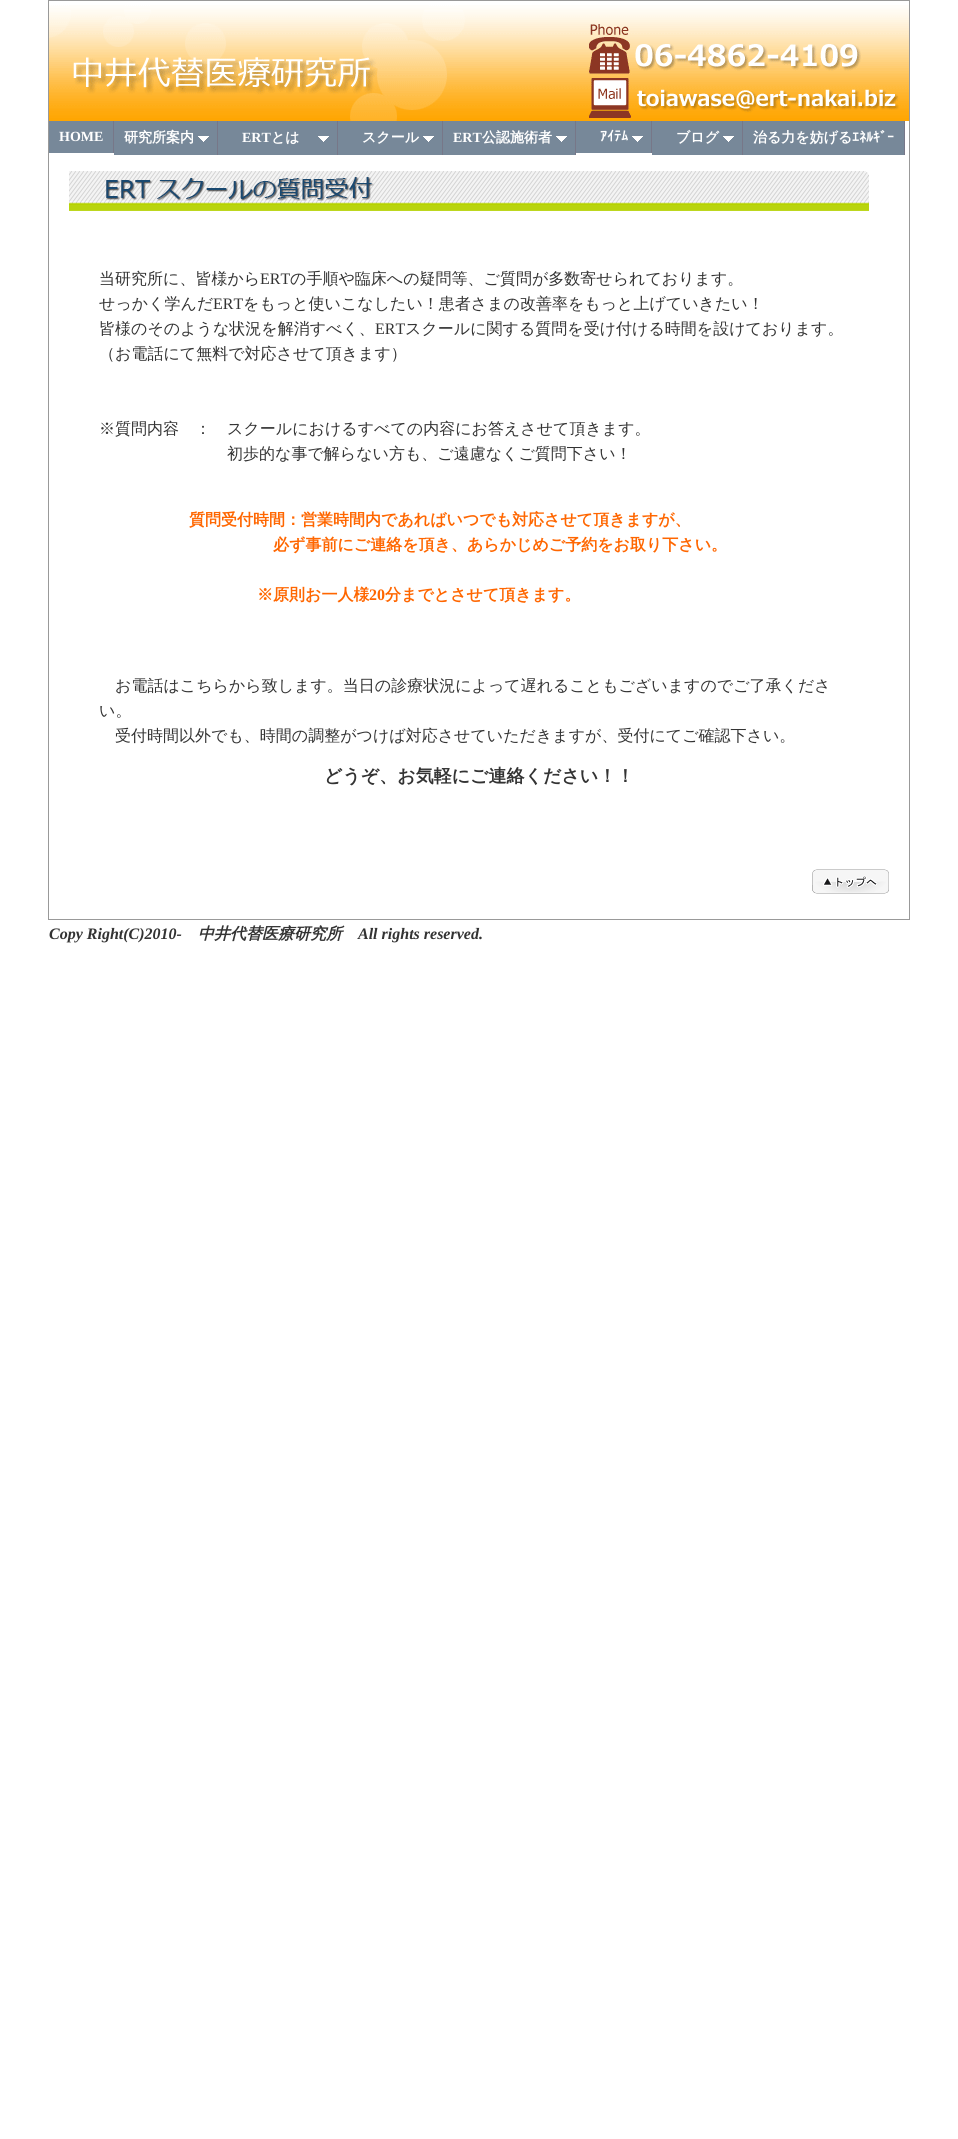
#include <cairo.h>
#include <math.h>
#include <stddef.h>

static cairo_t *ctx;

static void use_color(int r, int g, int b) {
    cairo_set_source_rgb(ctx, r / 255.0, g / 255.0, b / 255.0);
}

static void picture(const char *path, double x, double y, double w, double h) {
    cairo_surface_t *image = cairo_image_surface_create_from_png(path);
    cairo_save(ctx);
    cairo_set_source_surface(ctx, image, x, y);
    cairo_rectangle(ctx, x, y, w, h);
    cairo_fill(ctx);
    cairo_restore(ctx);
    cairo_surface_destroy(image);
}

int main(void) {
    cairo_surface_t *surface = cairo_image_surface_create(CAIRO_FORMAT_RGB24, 958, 2139);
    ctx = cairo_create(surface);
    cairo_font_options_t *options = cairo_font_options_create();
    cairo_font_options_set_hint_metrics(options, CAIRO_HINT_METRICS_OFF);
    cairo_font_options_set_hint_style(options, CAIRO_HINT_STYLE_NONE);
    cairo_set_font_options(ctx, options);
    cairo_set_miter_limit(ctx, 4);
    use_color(255, 255, 255);
    cairo_paint(ctx);
    cairo_rectangle(ctx, 48.5, 0.5, 861, 919);
    use_color(153, 153, 153);
    cairo_set_line_width(ctx, 1);
    cairo_stroke(ctx);
    picture("img1.png", 49, 5, 860, 116);
    use_color(119, 136, 153);
    cairo_rectangle(ctx, 49, 121, 64, 32);
    cairo_fill(ctx);
    use_color(119, 119, 136);
    cairo_rectangle(ctx, 113, 121, 1, 32);
    cairo_fill(ctx);
    cairo_select_font_face(ctx, "Liberation Serif", CAIRO_FONT_SLANT_NORMAL, CAIRO_FONT_WEIGHT_BOLD);
    cairo_set_font_size(ctx, 14);
    use_color(255, 255, 255);
    cairo_move_to(ctx, 59, 141);
    cairo_show_text(ctx, "HOME");
    use_color(119, 136, 153);
    cairo_rectangle(ctx, 114, 121, 103, 34);
    cairo_fill(ctx);
    use_color(119, 119, 136);
    cairo_rectangle(ctx, 217, 121, 1, 34);
    cairo_fill(ctx);
    cairo_select_font_face(ctx, "WenQuanYi Zen Hei", CAIRO_FONT_SLANT_NORMAL, CAIRO_FONT_WEIGHT_BOLD);
    use_color(255, 255, 255);
    cairo_move_to(ctx, 124, 142);
    cairo_show_text(ctx, "研究所案内");
    picture("img2.png", 198, 136, 11, 6);
    use_color(119, 136, 153);
    cairo_rectangle(ctx, 218, 121, 119, 34);
    cairo_fill(ctx);
    use_color(119, 119, 136);
    cairo_rectangle(ctx, 337, 121, 1, 34);
    cairo_fill(ctx);
    cairo_select_font_face(ctx, "Liberation Serif", CAIRO_FONT_SLANT_NORMAL, CAIRO_FONT_WEIGHT_BOLD);
    use_color(255, 255, 255);
    cairo_move_to(ctx, 242, 142);
    cairo_show_text(ctx, "ERT");
    cairo_select_font_face(ctx, "WenQuanYi Zen Hei", CAIRO_FONT_SLANT_NORMAL, CAIRO_FONT_WEIGHT_BOLD);
    cairo_move_to(ctx, 271, 142);
    cairo_show_text(ctx, "とは");
    picture("img2.png", 318, 136, 11, 6);
    use_color(119, 136, 153);
    cairo_rectangle(ctx, 338, 121, 104, 34);
    cairo_fill(ctx);
    use_color(119, 119, 136);
    cairo_rectangle(ctx, 442, 121, 1, 34);
    cairo_fill(ctx);
    use_color(255, 255, 255);
    cairo_move_to(ctx, 362, 142);
    cairo_show_text(ctx, "スクール");
    picture("img2.png", 423, 136, 11, 6);
    use_color(119, 136, 153);
    cairo_rectangle(ctx, 443, 121, 132, 34);
    cairo_fill(ctx);
    use_color(119, 119, 136);
    cairo_rectangle(ctx, 575, 121, 1, 34);
    cairo_fill(ctx);
    cairo_select_font_face(ctx, "Liberation Serif", CAIRO_FONT_SLANT_NORMAL, CAIRO_FONT_WEIGHT_BOLD);
    use_color(255, 255, 255);
    cairo_move_to(ctx, 453, 142);
    cairo_show_text(ctx, "ERT");
    cairo_select_font_face(ctx, "WenQuanYi Zen Hei", CAIRO_FONT_SLANT_NORMAL, CAIRO_FONT_WEIGHT_BOLD);
    cairo_move_to(ctx, 482, 142);
    cairo_show_text(ctx, "公認施術者");
    picture("img2.png", 556, 136, 11, 6);
    use_color(119, 136, 153);
    cairo_rectangle(ctx, 576, 121, 75, 32);
    cairo_fill(ctx);
    use_color(119, 119, 136);
    cairo_rectangle(ctx, 651, 121, 1, 32);
    cairo_fill(ctx);
    cairo_select_font_face(ctx, "IPAPGothic", CAIRO_FONT_SLANT_NORMAL, CAIRO_FONT_WEIGHT_BOLD);
    use_color(255, 255, 255);
    cairo_move_to(ctx, 600, 141);
    cairo_show_text(ctx, "ｱｲﾃﾑ");
    picture("img2.png", 632, 136, 11, 6);
    use_color(119, 136, 153);
    cairo_rectangle(ctx, 652, 121, 90, 34);
    cairo_fill(ctx);
    use_color(119, 119, 136);
    cairo_rectangle(ctx, 742, 121, 1, 34);
    cairo_fill(ctx);
    cairo_select_font_face(ctx, "WenQuanYi Zen Hei", CAIRO_FONT_SLANT_NORMAL, CAIRO_FONT_WEIGHT_BOLD);
    use_color(255, 255, 255);
    cairo_move_to(ctx, 676, 142);
    cairo_show_text(ctx, "ブログ");
    picture("img2.png", 723, 136, 11, 6);
    use_color(119, 136, 153);
    cairo_rectangle(ctx, 743, 121, 161, 34);
    cairo_fill(ctx);
    use_color(119, 119, 136);
    cairo_rectangle(ctx, 904, 121, 1, 34);
    cairo_fill(ctx);
    use_color(255, 255, 255);
    cairo_move_to(ctx, 753, 142);
    cairo_show_text(ctx, "治る力を妨げる");
    cairo_select_font_face(ctx, "IPAPGothic", CAIRO_FONT_SLANT_NORMAL, CAIRO_FONT_WEIGHT_BOLD);
    cairo_move_to(ctx, 852, 142);
    cairo_show_text(ctx, "ｴﾈﾙｷﾞｰ");
    picture("img3.png", 69, 171, 800, 40);
    cairo_select_font_face(ctx, "WenQuanYi Zen Hei Medium", CAIRO_FONT_SLANT_NORMAL, CAIRO_FONT_WEIGHT_NORMAL);
    cairo_set_font_size(ctx, 16);
    use_color(51, 51, 51);
    cairo_move_to(ctx, 99, 284);
    cairo_show_text(ctx, "当研究所に、皆様から");
    cairo_select_font_face(ctx, "Liberation Serif", CAIRO_FONT_SLANT_NORMAL, CAIRO_FONT_WEIGHT_NORMAL);
    cairo_move_to(ctx, 260, 284);
    cairo_show_text(ctx, "ERT");
    cairo_select_font_face(ctx, "WenQuanYi Zen Hei Medium", CAIRO_FONT_SLANT_NORMAL, CAIRO_FONT_WEIGHT_NORMAL);
    cairo_move_to(ctx, 290, 284);
    cairo_show_text(ctx, "の手順や臨床への疑問等、ご質問が多数寄せられております。");
    cairo_move_to(ctx, 99, 309);
    cairo_show_text(ctx, "せっかく学んだ");
    cairo_select_font_face(ctx, "Liberation Serif", CAIRO_FONT_SLANT_NORMAL, CAIRO_FONT_WEIGHT_NORMAL);
    cairo_move_to(ctx, 213, 309);
    cairo_show_text(ctx, "ERT");
    cairo_select_font_face(ctx, "WenQuanYi Zen Hei Medium", CAIRO_FONT_SLANT_NORMAL, CAIRO_FONT_WEIGHT_NORMAL);
    cairo_move_to(ctx, 243, 309);
    cairo_show_text(ctx, "をもっと使いこなしたい！患者さまの改善率をもっと上げていきたい！");
    cairo_move_to(ctx, 99, 334);
    cairo_show_text(ctx, "皆様のそのような状況を解消すべく、");
    cairo_select_font_face(ctx, "Liberation Serif", CAIRO_FONT_SLANT_NORMAL, CAIRO_FONT_WEIGHT_NORMAL);
    cairo_move_to(ctx, 375, 334);
    cairo_show_text(ctx, "ERT");
    cairo_select_font_face(ctx, "WenQuanYi Zen Hei Medium", CAIRO_FONT_SLANT_NORMAL, CAIRO_FONT_WEIGHT_NORMAL);
    cairo_move_to(ctx, 405, 334);
    cairo_show_text(ctx, "スクールに関する質問を受け付ける時間を設けております。");
    cairo_move_to(ctx, 99, 359);
    cairo_show_text(ctx, "（お電話にて無料で対応させて頂きます）");
    cairo_move_to(ctx, 99, 434);
    cairo_show_text(ctx, "※質問内容　：　スクールにおけるすべての内容にお答えさせて頂きます。");
    cairo_move_to(ctx, 227, 459);
    cairo_show_text(ctx, "初歩的な事で解らない方も、ご遠慮なくご質問下さい！");
    cairo_select_font_face(ctx, "WenQuanYi Zen Hei", CAIRO_FONT_SLANT_NORMAL, CAIRO_FONT_WEIGHT_BOLD);
    use_color(255, 102, 0);
    cairo_move_to(ctx, 189, 525);
    cairo_show_text(ctx, "質問受付時間：営業時間内であればいつでも対応させて頂きますが、");
    cairo_move_to(ctx, 273, 550);
    cairo_show_text(ctx, "必ず事前にご連絡を頂き、あらかじめご予約をお取り下さい。");
    cairo_move_to(ctx, 257, 600);
    cairo_show_text(ctx, "※原則お一人様");
    cairo_select_font_face(ctx, "Liberation Serif", CAIRO_FONT_SLANT_NORMAL, CAIRO_FONT_WEIGHT_BOLD);
    cairo_move_to(ctx, 369, 600);
    cairo_show_text(ctx, "20");
    cairo_select_font_face(ctx, "WenQuanYi Zen Hei", CAIRO_FONT_SLANT_NORMAL, CAIRO_FONT_WEIGHT_BOLD);
    cairo_move_to(ctx, 385, 600);
    cairo_show_text(ctx, "分までとさせて頂きます。");
    cairo_select_font_face(ctx, "WenQuanYi Zen Hei Medium", CAIRO_FONT_SLANT_NORMAL, CAIRO_FONT_WEIGHT_NORMAL);
    use_color(51, 51, 51);
    cairo_move_to(ctx, 115, 691);
    cairo_show_text(ctx, "お電話はこちらから致します。当日の診療状況によって遅れることもございますのでご了承くださ");
    cairo_move_to(ctx, 99, 716);
    cairo_show_text(ctx, "い。");
    cairo_move_to(ctx, 115, 741);
    cairo_show_text(ctx, "受付時間以外でも、時間の調整がつけば対応させていただきますが、受付にてご確認下さい。");
    cairo_select_font_face(ctx, "WenQuanYi Zen Hei", CAIRO_FONT_SLANT_NORMAL, CAIRO_FONT_WEIGHT_BOLD);
    cairo_set_font_size(ctx, 18);
    cairo_move_to(ctx, 324, 782);
    cairo_show_text(ctx, "どうぞ、お気軽にご連絡ください！！");
    picture("img4.png", 812, 869, 77, 25);
    cairo_select_font_face(ctx, "Liberation Serif", CAIRO_FONT_SLANT_ITALIC, CAIRO_FONT_WEIGHT_BOLD);
    cairo_set_font_size(ctx, 16);
    cairo_move_to(ctx, 49, 939);
    cairo_show_text(ctx, "Copy Right(C)2010-");
    cairo_select_font_face(ctx, "WenQuanYi Zen Hei", CAIRO_FONT_SLANT_ITALIC, CAIRO_FONT_WEIGHT_BOLD);
    cairo_move_to(ctx, 198, 939);
    cairo_show_text(ctx, "中井代替医療研究所");
    cairo_select_font_face(ctx, "Liberation Serif", CAIRO_FONT_SLANT_ITALIC, CAIRO_FONT_WEIGHT_BOLD);
    cairo_move_to(ctx, 358, 939);
    cairo_show_text(ctx, "All rights reserved.");
    cairo_surface_write_to_png(surface, "result.png");
    cairo_font_options_destroy(options);
    cairo_destroy(ctx);
    cairo_surface_destroy(surface);
    return 0;
}
